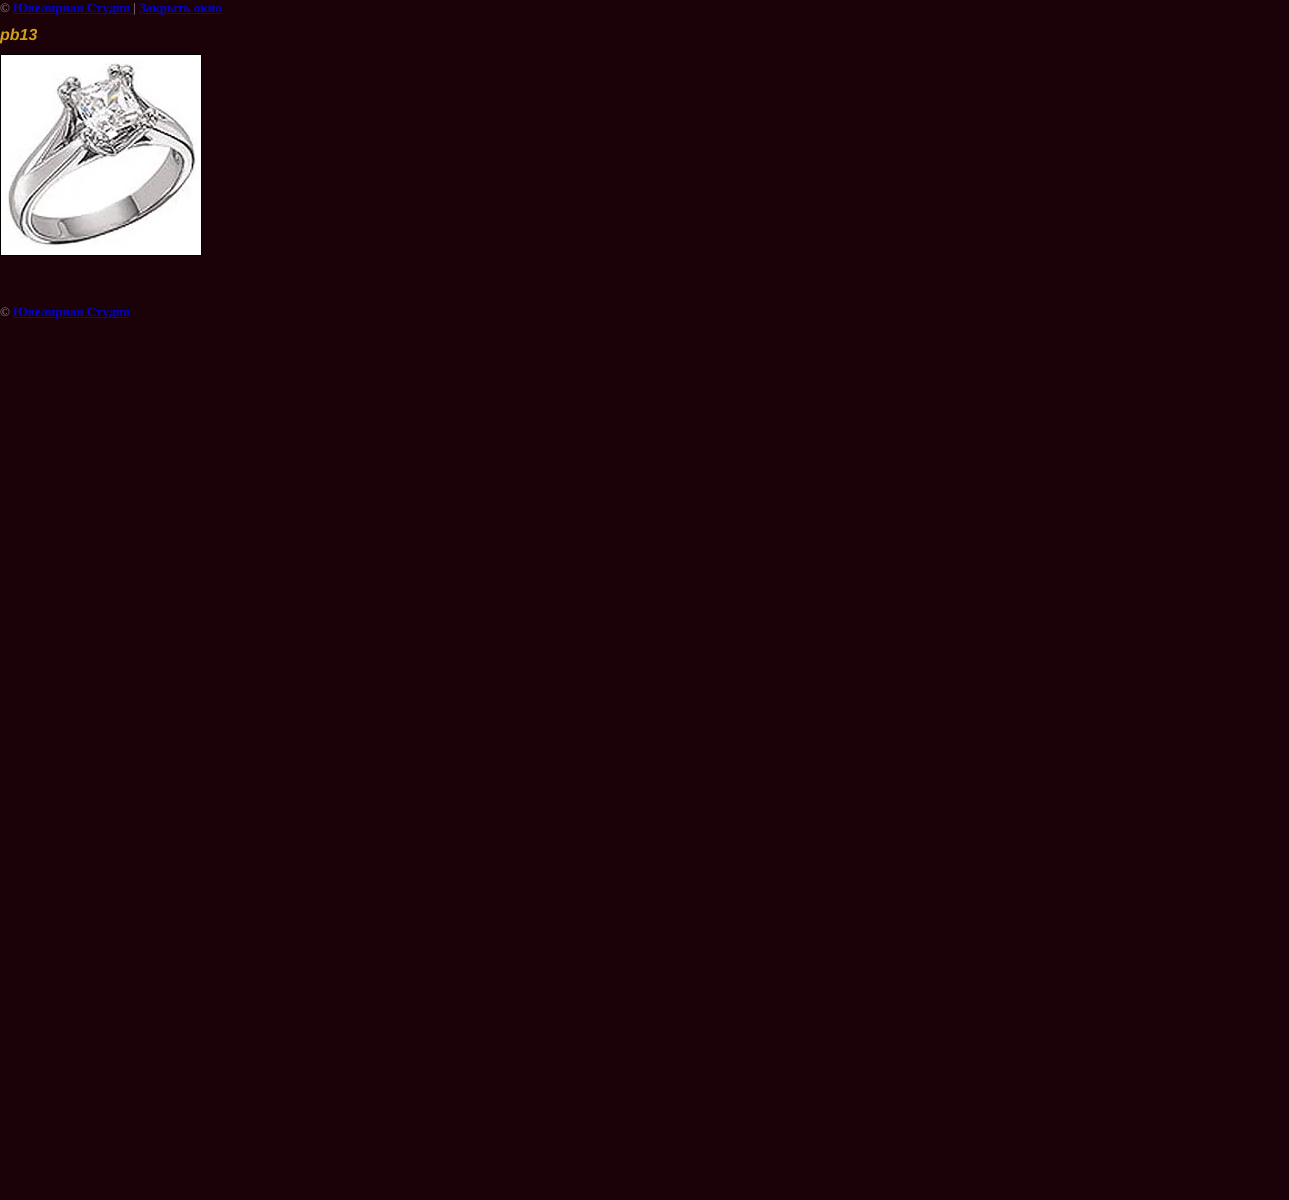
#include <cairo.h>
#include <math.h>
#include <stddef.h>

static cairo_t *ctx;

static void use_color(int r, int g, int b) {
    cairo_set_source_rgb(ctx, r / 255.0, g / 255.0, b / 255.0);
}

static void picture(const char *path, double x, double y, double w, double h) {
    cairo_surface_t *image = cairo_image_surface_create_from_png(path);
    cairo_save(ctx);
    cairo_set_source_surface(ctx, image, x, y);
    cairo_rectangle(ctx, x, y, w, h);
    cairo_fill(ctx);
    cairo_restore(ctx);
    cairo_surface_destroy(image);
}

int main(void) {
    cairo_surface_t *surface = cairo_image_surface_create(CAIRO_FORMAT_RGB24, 1289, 1200);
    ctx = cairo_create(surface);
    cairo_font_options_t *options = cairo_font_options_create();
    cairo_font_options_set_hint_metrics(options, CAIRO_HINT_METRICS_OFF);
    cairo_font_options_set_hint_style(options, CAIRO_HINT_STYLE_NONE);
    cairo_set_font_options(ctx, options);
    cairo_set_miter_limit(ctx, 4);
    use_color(27, 1, 8);
    cairo_paint(ctx);
    cairo_select_font_face(ctx, "Liberation Serif", CAIRO_FONT_SLANT_NORMAL, CAIRO_FONT_WEIGHT_NORMAL);
    cairo_set_font_size(ctx, 13);
    use_color(145, 145, 145);
    cairo_move_to(ctx, 0, 12);
    cairo_show_text(ctx, "©");
    use_color(0, 0, 204);
    cairo_rectangle(ctx, 13, 13, 120, 1);
    cairo_fill(ctx);
    cairo_select_font_face(ctx, "Liberation Serif", CAIRO_FONT_SLANT_NORMAL, CAIRO_FONT_WEIGHT_BOLD);
    cairo_move_to(ctx, 13, 12);
    cairo_show_text(ctx, "Ювелирная Студия");
    cairo_select_font_face(ctx, "Liberation Serif", CAIRO_FONT_SLANT_NORMAL, CAIRO_FONT_WEIGHT_NORMAL);
    use_color(145, 145, 145);
    cairo_move_to(ctx, 133, 12);
    cairo_show_text(ctx, "|");
    use_color(0, 0, 204);
    cairo_rectangle(ctx, 139, 13, 83, 1);
    cairo_fill(ctx);
    cairo_select_font_face(ctx, "Liberation Serif", CAIRO_FONT_SLANT_NORMAL, CAIRO_FONT_WEIGHT_BOLD);
    cairo_move_to(ctx, 139, 12);
    cairo_show_text(ctx, "Закрыть окно");
    cairo_select_font_face(ctx, "Liberation Sans", CAIRO_FONT_SLANT_ITALIC, CAIRO_FONT_WEIGHT_BOLD);
    cairo_set_font_size(ctx, 16);
    use_color(208, 159, 25);
    cairo_move_to(ctx, 0, 40);
    cairo_show_text(ctx, "pb13");
    cairo_rectangle(ctx, 0.5, 54.5, 201, 201);
    use_color(0, 0, 0);
    cairo_set_line_width(ctx, 1);
    cairo_stroke(ctx);
    picture("img1.png", 1, 55, 200, 200);
    cairo_select_font_face(ctx, "Liberation Serif", CAIRO_FONT_SLANT_NORMAL, CAIRO_FONT_WEIGHT_NORMAL);
    cairo_set_font_size(ctx, 13);
    use_color(145, 145, 145);
    cairo_move_to(ctx, 0, 316);
    cairo_show_text(ctx, "©");
    use_color(0, 0, 204);
    cairo_rectangle(ctx, 13, 317, 117, 1);
    cairo_fill(ctx);
    cairo_select_font_face(ctx, "Liberation Serif", CAIRO_FONT_SLANT_NORMAL, CAIRO_FONT_WEIGHT_BOLD);
    cairo_move_to(ctx, 13, 316);
    cairo_show_text(ctx, "Ювелирная Студия");
    cairo_surface_write_to_png(surface, "result.png");
    cairo_font_options_destroy(options);
    cairo_destroy(ctx);
    cairo_surface_destroy(surface);
    return 0;
}
